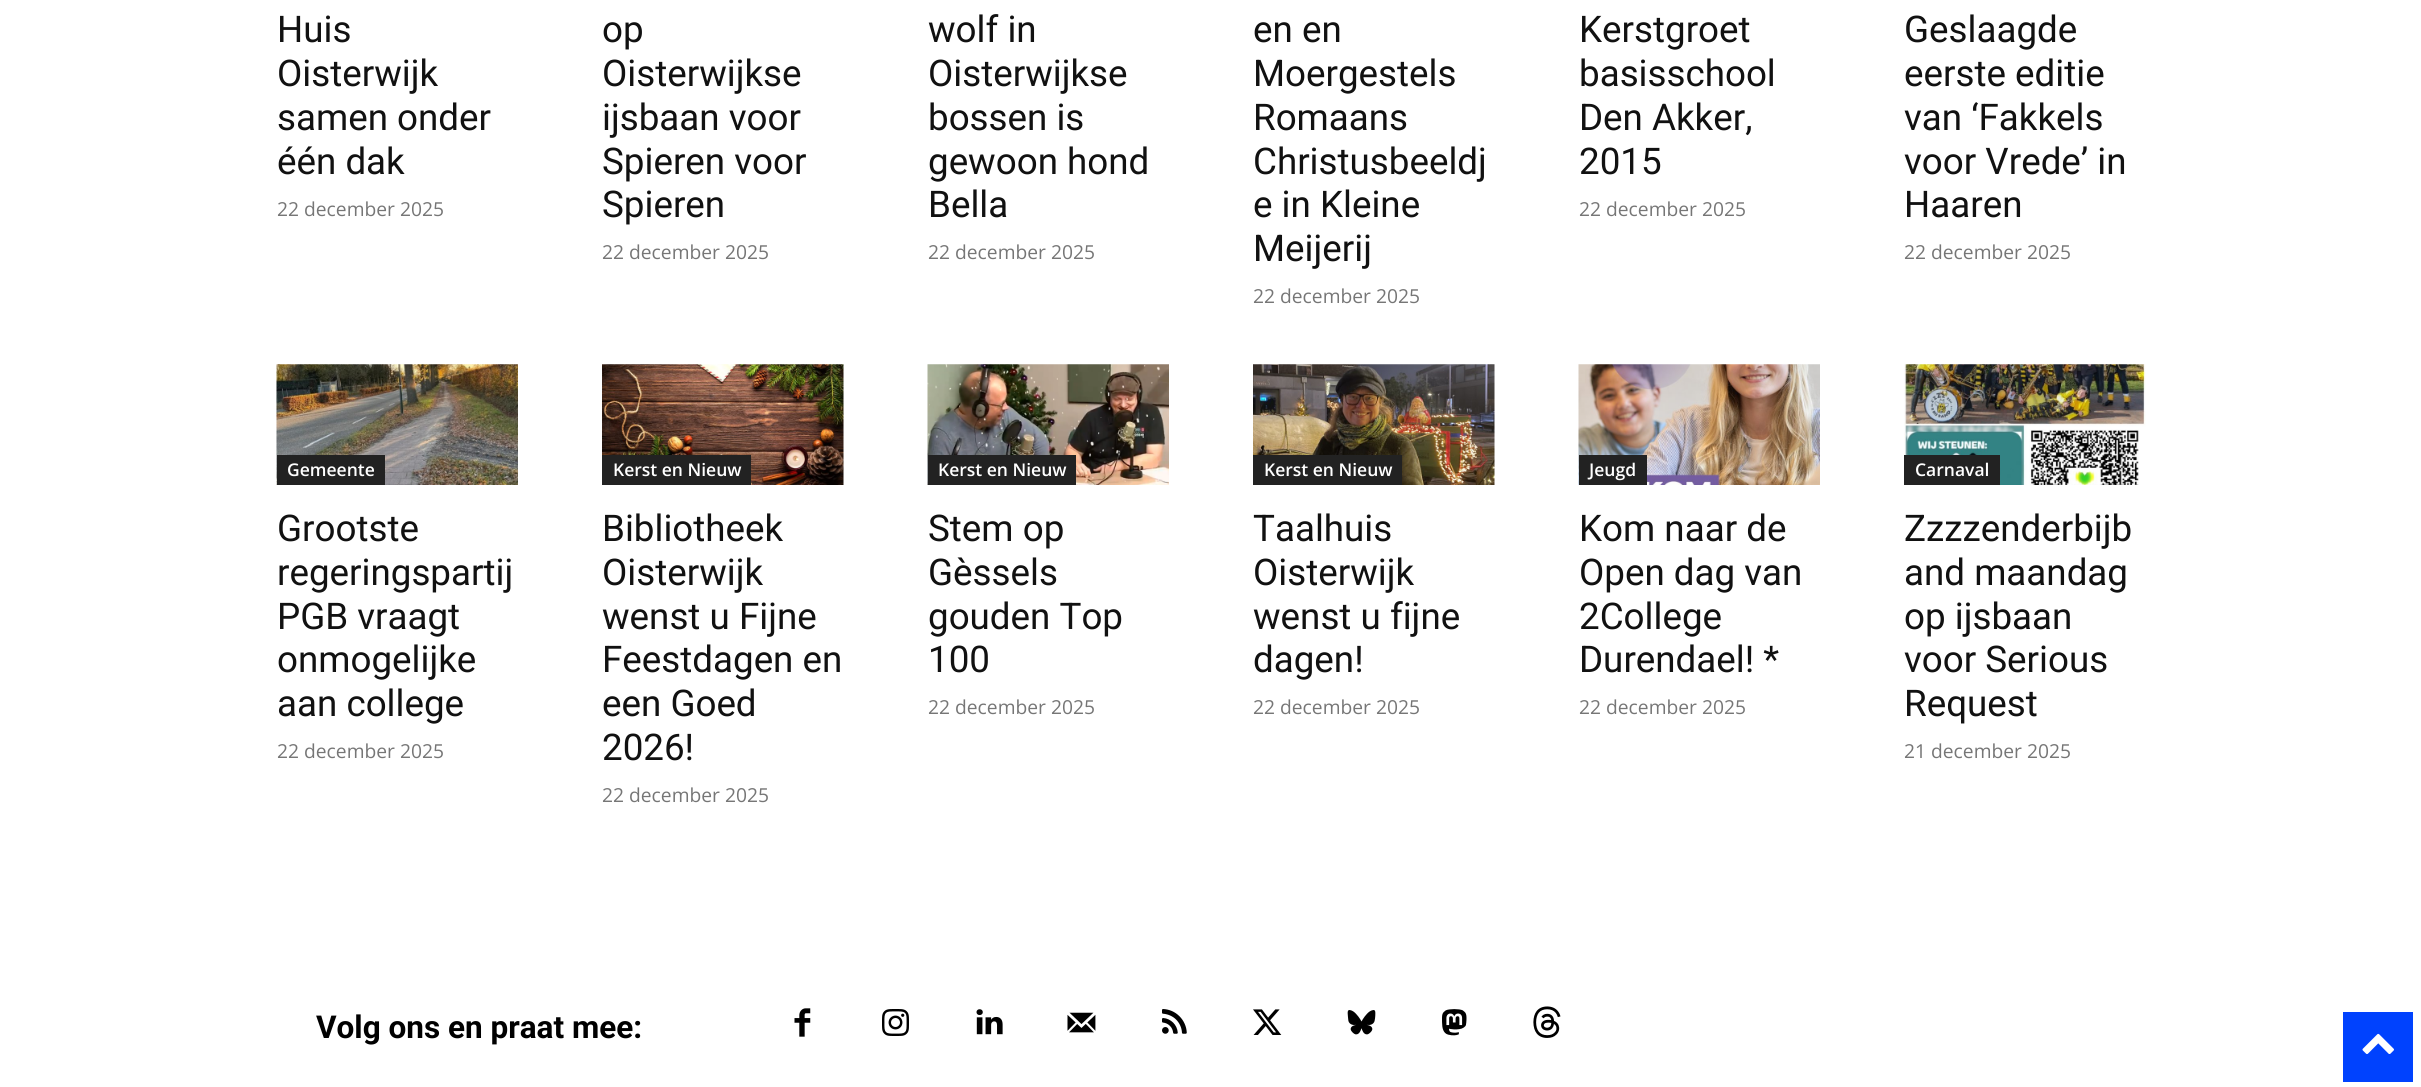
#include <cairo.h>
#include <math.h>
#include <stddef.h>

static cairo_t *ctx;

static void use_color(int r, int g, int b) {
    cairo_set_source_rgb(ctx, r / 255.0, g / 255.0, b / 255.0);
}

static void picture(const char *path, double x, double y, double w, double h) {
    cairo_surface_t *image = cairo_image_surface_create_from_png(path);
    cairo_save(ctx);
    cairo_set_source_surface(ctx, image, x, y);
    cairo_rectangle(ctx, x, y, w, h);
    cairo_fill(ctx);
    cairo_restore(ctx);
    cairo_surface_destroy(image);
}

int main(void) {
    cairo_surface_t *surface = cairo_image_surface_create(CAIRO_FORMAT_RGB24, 2421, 1087);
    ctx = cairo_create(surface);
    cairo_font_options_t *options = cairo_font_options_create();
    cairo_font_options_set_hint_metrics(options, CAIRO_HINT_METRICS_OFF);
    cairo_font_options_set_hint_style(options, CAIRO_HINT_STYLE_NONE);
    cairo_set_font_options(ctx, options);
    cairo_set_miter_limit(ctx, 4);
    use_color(255, 255, 255);
    cairo_paint(ctx);
    cairo_select_font_face(ctx, "Roboto", CAIRO_FONT_SLANT_NORMAL, CAIRO_FONT_WEIGHT_NORMAL);
    cairo_set_font_size(ctx, 36.75);
    use_color(17, 17, 17);
    cairo_move_to(ctx, 277, 42);
    cairo_show_text(ctx, "Huis");
    cairo_move_to(ctx, 277, 86);
    cairo_show_text(ctx, "Oisterwijk");
    cairo_move_to(ctx, 277, 130);
    cairo_show_text(ctx, "samen onder");
    cairo_move_to(ctx, 277, 174);
    cairo_show_text(ctx, "één dak");
    cairo_select_font_face(ctx, "Open Sans", CAIRO_FONT_SLANT_NORMAL, CAIRO_FONT_WEIGHT_NORMAL);
    cairo_set_font_size(ctx, 19.25);
    use_color(118, 118, 118);
    cairo_move_to(ctx, 277, 216);
    cairo_show_text(ctx, "22 december 2025");
    cairo_select_font_face(ctx, "Roboto", CAIRO_FONT_SLANT_NORMAL, CAIRO_FONT_WEIGHT_NORMAL);
    cairo_set_font_size(ctx, 36.75);
    use_color(17, 17, 17);
    cairo_move_to(ctx, 602, 42);
    cairo_show_text(ctx, "op");
    cairo_move_to(ctx, 602, 86);
    cairo_show_text(ctx, "Oisterwijkse");
    cairo_move_to(ctx, 602, 130);
    cairo_show_text(ctx, "ijsbaan voor");
    cairo_move_to(ctx, 602, 174);
    cairo_show_text(ctx, "Spieren voor");
    cairo_move_to(ctx, 602, 217);
    cairo_show_text(ctx, "Spieren");
    cairo_select_font_face(ctx, "Open Sans", CAIRO_FONT_SLANT_NORMAL, CAIRO_FONT_WEIGHT_NORMAL);
    cairo_set_font_size(ctx, 19.25);
    use_color(118, 118, 118);
    cairo_move_to(ctx, 602, 259);
    cairo_show_text(ctx, "22 december 2025");
    cairo_select_font_face(ctx, "Roboto", CAIRO_FONT_SLANT_NORMAL, CAIRO_FONT_WEIGHT_NORMAL);
    cairo_set_font_size(ctx, 36.75);
    use_color(17, 17, 17);
    cairo_move_to(ctx, 928, 42);
    cairo_show_text(ctx, "wolf in");
    cairo_move_to(ctx, 928, 86);
    cairo_show_text(ctx, "Oisterwijkse");
    cairo_move_to(ctx, 928, 130);
    cairo_show_text(ctx, "bossen is");
    cairo_move_to(ctx, 928, 174);
    cairo_show_text(ctx, "gewoon hond");
    cairo_move_to(ctx, 928, 217);
    cairo_show_text(ctx, "Bella");
    cairo_select_font_face(ctx, "Open Sans", CAIRO_FONT_SLANT_NORMAL, CAIRO_FONT_WEIGHT_NORMAL);
    cairo_set_font_size(ctx, 19.25);
    use_color(118, 118, 118);
    cairo_move_to(ctx, 928, 259);
    cairo_show_text(ctx, "22 december 2025");
    cairo_select_font_face(ctx, "Roboto", CAIRO_FONT_SLANT_NORMAL, CAIRO_FONT_WEIGHT_NORMAL);
    cairo_set_font_size(ctx, 36.75);
    use_color(17, 17, 17);
    cairo_move_to(ctx, 1253, 42);
    cairo_show_text(ctx, "en en");
    cairo_move_to(ctx, 1253, 86);
    cairo_show_text(ctx, "Moergestels");
    cairo_move_to(ctx, 1253, 130);
    cairo_show_text(ctx, "Romaans");
    cairo_move_to(ctx, 1253, 174);
    cairo_show_text(ctx, "Christusbeeldj");
    cairo_move_to(ctx, 1253, 217);
    cairo_show_text(ctx, "e in Kleine");
    cairo_move_to(ctx, 1253, 261);
    cairo_show_text(ctx, "Meijerij");
    cairo_select_font_face(ctx, "Open Sans", CAIRO_FONT_SLANT_NORMAL, CAIRO_FONT_WEIGHT_NORMAL);
    cairo_set_font_size(ctx, 19.25);
    use_color(118, 118, 118);
    cairo_move_to(ctx, 1253, 303);
    cairo_show_text(ctx, "22 december 2025");
    cairo_select_font_face(ctx, "Roboto", CAIRO_FONT_SLANT_NORMAL, CAIRO_FONT_WEIGHT_NORMAL);
    cairo_set_font_size(ctx, 36.75);
    use_color(17, 17, 17);
    cairo_move_to(ctx, 1579, 42);
    cairo_show_text(ctx, "Kerstgroet");
    cairo_move_to(ctx, 1579, 86);
    cairo_show_text(ctx, "basisschool");
    cairo_move_to(ctx, 1579, 130);
    cairo_show_text(ctx, "Den Akker,");
    cairo_move_to(ctx, 1579, 174);
    cairo_show_text(ctx, "2015");
    cairo_select_font_face(ctx, "Open Sans", CAIRO_FONT_SLANT_NORMAL, CAIRO_FONT_WEIGHT_NORMAL);
    cairo_set_font_size(ctx, 19.25);
    use_color(118, 118, 118);
    cairo_move_to(ctx, 1579, 216);
    cairo_show_text(ctx, "22 december 2025");
    cairo_select_font_face(ctx, "Roboto", CAIRO_FONT_SLANT_NORMAL, CAIRO_FONT_WEIGHT_NORMAL);
    cairo_set_font_size(ctx, 36.75);
    use_color(17, 17, 17);
    cairo_move_to(ctx, 1904, 42);
    cairo_show_text(ctx, "Geslaagde");
    cairo_move_to(ctx, 1904, 86);
    cairo_show_text(ctx, "eerste editie");
    cairo_move_to(ctx, 1904, 130);
    cairo_show_text(ctx, "van ‘Fakkels");
    cairo_move_to(ctx, 1904, 174);
    cairo_show_text(ctx, "voor Vrede’ in");
    cairo_move_to(ctx, 1904, 217);
    cairo_show_text(ctx, "Haaren");
    cairo_select_font_face(ctx, "Open Sans", CAIRO_FONT_SLANT_NORMAL, CAIRO_FONT_WEIGHT_NORMAL);
    cairo_set_font_size(ctx, 19.25);
    use_color(118, 118, 118);
    cairo_move_to(ctx, 1904, 259);
    cairo_show_text(ctx, "22 december 2025");
    picture("img1.png", 276, 364, 242, 121);
    use_color(34, 34, 34);
    cairo_rectangle(ctx, 277, 455, 108, 30);
    cairo_fill(ctx);
    cairo_select_font_face(ctx, "Open Sans SemiBold", CAIRO_FONT_SLANT_NORMAL, CAIRO_FONT_WEIGHT_NORMAL);
    cairo_set_font_size(ctx, 17.5);
    use_color(255, 255, 255);
    cairo_move_to(ctx, 287, 476);
    cairo_show_text(ctx, "Gemeente");
    cairo_select_font_face(ctx, "Roboto", CAIRO_FONT_SLANT_NORMAL, CAIRO_FONT_WEIGHT_NORMAL);
    cairo_set_font_size(ctx, 36.75);
    use_color(17, 17, 17);
    cairo_move_to(ctx, 277, 541);
    cairo_show_text(ctx, "Grootste");
    cairo_move_to(ctx, 277, 585);
    cairo_show_text(ctx, "regeringspartij");
    cairo_move_to(ctx, 277, 629);
    cairo_show_text(ctx, "PGB vraagt");
    cairo_move_to(ctx, 277, 672);
    cairo_show_text(ctx, "onmogelijke");
    cairo_move_to(ctx, 277, 716);
    cairo_show_text(ctx, "aan college");
    cairo_select_font_face(ctx, "Open Sans", CAIRO_FONT_SLANT_NORMAL, CAIRO_FONT_WEIGHT_NORMAL);
    cairo_set_font_size(ctx, 19.25);
    use_color(118, 118, 118);
    cairo_move_to(ctx, 277, 758);
    cairo_show_text(ctx, "22 december 2025");
    picture("img2.png", 602, 364, 242, 121);
    use_color(34, 34, 34);
    cairo_rectangle(ctx, 602, 455, 149, 30);
    cairo_fill(ctx);
    cairo_select_font_face(ctx, "Open Sans SemiBold", CAIRO_FONT_SLANT_NORMAL, CAIRO_FONT_WEIGHT_NORMAL);
    cairo_set_font_size(ctx, 17.5);
    use_color(255, 255, 255);
    cairo_move_to(ctx, 613, 476);
    cairo_show_text(ctx, "Kerst en Nieuw");
    cairo_select_font_face(ctx, "Roboto", CAIRO_FONT_SLANT_NORMAL, CAIRO_FONT_WEIGHT_NORMAL);
    cairo_set_font_size(ctx, 36.75);
    use_color(17, 17, 17);
    cairo_move_to(ctx, 602, 541);
    cairo_show_text(ctx, "Bibliotheek");
    cairo_move_to(ctx, 602, 585);
    cairo_show_text(ctx, "Oisterwijk");
    cairo_move_to(ctx, 602, 629);
    cairo_show_text(ctx, "wenst u Fijne");
    cairo_move_to(ctx, 602, 672);
    cairo_show_text(ctx, "Feestdagen en");
    cairo_move_to(ctx, 602, 716);
    cairo_show_text(ctx, "een Goed");
    cairo_move_to(ctx, 602, 760);
    cairo_show_text(ctx, "2026!");
    cairo_select_font_face(ctx, "Open Sans", CAIRO_FONT_SLANT_NORMAL, CAIRO_FONT_WEIGHT_NORMAL);
    cairo_set_font_size(ctx, 19.25);
    use_color(118, 118, 118);
    cairo_move_to(ctx, 602, 802);
    cairo_show_text(ctx, "22 december 2025");
    picture("img3.png", 927, 364, 242, 121);
    use_color(34, 34, 34);
    cairo_rectangle(ctx, 928, 455, 148, 30);
    cairo_fill(ctx);
    cairo_select_font_face(ctx, "Open Sans SemiBold", CAIRO_FONT_SLANT_NORMAL, CAIRO_FONT_WEIGHT_NORMAL);
    cairo_set_font_size(ctx, 17.5);
    use_color(255, 255, 255);
    cairo_move_to(ctx, 938, 476);
    cairo_show_text(ctx, "Kerst en Nieuw");
    cairo_select_font_face(ctx, "Roboto", CAIRO_FONT_SLANT_NORMAL, CAIRO_FONT_WEIGHT_NORMAL);
    cairo_set_font_size(ctx, 36.75);
    use_color(17, 17, 17);
    cairo_move_to(ctx, 928, 541);
    cairo_show_text(ctx, "Stem op");
    cairo_move_to(ctx, 928, 585);
    cairo_show_text(ctx, "Gèssels");
    cairo_move_to(ctx, 928, 629);
    cairo_show_text(ctx, "gouden Top");
    cairo_move_to(ctx, 928, 672);
    cairo_show_text(ctx, "100");
    cairo_select_font_face(ctx, "Open Sans", CAIRO_FONT_SLANT_NORMAL, CAIRO_FONT_WEIGHT_NORMAL);
    cairo_set_font_size(ctx, 19.25);
    use_color(118, 118, 118);
    cairo_move_to(ctx, 928, 714);
    cairo_show_text(ctx, "22 december 2025");
    picture("img4.png", 1253, 364, 242, 121);
    use_color(34, 34, 34);
    cairo_rectangle(ctx, 1253, 455, 149, 30);
    cairo_fill(ctx);
    cairo_select_font_face(ctx, "Open Sans SemiBold", CAIRO_FONT_SLANT_NORMAL, CAIRO_FONT_WEIGHT_NORMAL);
    cairo_set_font_size(ctx, 17.5);
    use_color(255, 255, 255);
    cairo_move_to(ctx, 1264, 476);
    cairo_show_text(ctx, "Kerst en Nieuw");
    cairo_select_font_face(ctx, "Roboto", CAIRO_FONT_SLANT_NORMAL, CAIRO_FONT_WEIGHT_NORMAL);
    cairo_set_font_size(ctx, 36.75);
    use_color(17, 17, 17);
    cairo_move_to(ctx, 1253, 541);
    cairo_show_text(ctx, "Taalhuis");
    cairo_move_to(ctx, 1253, 585);
    cairo_show_text(ctx, "Oisterwijk");
    cairo_move_to(ctx, 1253, 629);
    cairo_show_text(ctx, "wenst u fijne");
    cairo_move_to(ctx, 1253, 672);
    cairo_show_text(ctx, "dagen!");
    cairo_select_font_face(ctx, "Open Sans", CAIRO_FONT_SLANT_NORMAL, CAIRO_FONT_WEIGHT_NORMAL);
    cairo_set_font_size(ctx, 19.25);
    use_color(118, 118, 118);
    cairo_move_to(ctx, 1253, 714);
    cairo_show_text(ctx, "22 december 2025");
    picture("img5.png", 1578, 364, 242, 121);
    use_color(34, 34, 34);
    cairo_rectangle(ctx, 1579, 455, 68, 30);
    cairo_fill(ctx);
    cairo_select_font_face(ctx, "Open Sans SemiBold", CAIRO_FONT_SLANT_NORMAL, CAIRO_FONT_WEIGHT_NORMAL);
    cairo_set_font_size(ctx, 17.5);
    use_color(255, 255, 255);
    cairo_move_to(ctx, 1589, 476);
    cairo_show_text(ctx, "Jeugd");
    cairo_select_font_face(ctx, "Roboto", CAIRO_FONT_SLANT_NORMAL, CAIRO_FONT_WEIGHT_NORMAL);
    cairo_set_font_size(ctx, 36.75);
    use_color(17, 17, 17);
    cairo_move_to(ctx, 1579, 541);
    cairo_show_text(ctx, "Kom naar de");
    cairo_move_to(ctx, 1579, 585);
    cairo_show_text(ctx, "Open dag van");
    cairo_move_to(ctx, 1579, 629);
    cairo_show_text(ctx, "2College");
    cairo_move_to(ctx, 1579, 672);
    cairo_show_text(ctx, "Durendael! *");
    cairo_select_font_face(ctx, "Open Sans", CAIRO_FONT_SLANT_NORMAL, CAIRO_FONT_WEIGHT_NORMAL);
    cairo_set_font_size(ctx, 19.25);
    use_color(118, 118, 118);
    cairo_move_to(ctx, 1579, 714);
    cairo_show_text(ctx, "22 december 2025");
    picture("img6.png", 1904, 364, 242, 121);
    use_color(34, 34, 34);
    cairo_rectangle(ctx, 1904, 455, 96, 30);
    cairo_fill(ctx);
    cairo_select_font_face(ctx, "Open Sans SemiBold", CAIRO_FONT_SLANT_NORMAL, CAIRO_FONT_WEIGHT_NORMAL);
    cairo_set_font_size(ctx, 17.5);
    use_color(255, 255, 255);
    cairo_move_to(ctx, 1915, 476);
    cairo_show_text(ctx, "Carnaval");
    cairo_select_font_face(ctx, "Roboto", CAIRO_FONT_SLANT_NORMAL, CAIRO_FONT_WEIGHT_NORMAL);
    cairo_set_font_size(ctx, 36.75);
    use_color(17, 17, 17);
    cairo_move_to(ctx, 1904, 541);
    cairo_show_text(ctx, "Zzzzenderbijb");
    cairo_move_to(ctx, 1904, 585);
    cairo_show_text(ctx, "and maandag");
    cairo_move_to(ctx, 1904, 629);
    cairo_show_text(ctx, "op ijsbaan");
    cairo_move_to(ctx, 1904, 672);
    cairo_show_text(ctx, "voor Serious");
    cairo_move_to(ctx, 1904, 716);
    cairo_show_text(ctx, "Request");
    cairo_select_font_face(ctx, "Open Sans", CAIRO_FONT_SLANT_NORMAL, CAIRO_FONT_WEIGHT_NORMAL);
    cairo_set_font_size(ctx, 19.25);
    use_color(118, 118, 118);
    cairo_move_to(ctx, 1904, 758);
    cairo_show_text(ctx, "21 december 2025");
    cairo_select_font_face(ctx, "Roboto", CAIRO_FONT_SLANT_NORMAL, CAIRO_FONT_WEIGHT_BOLD);
    cairo_set_font_size(ctx, 31.5);
    use_color(0, 0, 0);
    cairo_move_to(ctx, 316, 1038);
    cairo_show_text(ctx, "Volg ons en praat mee:");
    picture("img7.png", 794, 1008, 17, 29);
    picture("img8.png", 882, 1009, 27, 27);
    picture("img9.png", 976, 1009, 27, 26);
    picture("img10.png", 1067, 1012, 29, 21);
    picture("img11.png", 1162, 1009, 25, 25);
    picture("img12.png", 1253, 1009, 29, 26);
    picture("img13.png", 1347, 1010, 29, 25);
    picture("img14.png", 1442, 1009, 25, 27);
    picture("img15.png", 1533, 1006, 28, 32);
    use_color(0, 66, 254);
    cairo_rectangle(ctx, 2343, 1012, 70, 70);
    cairo_fill(ctx);
    picture("img16.png", 2362, 1033, 32, 21);
    cairo_surface_write_to_png(surface, "result.png");
    cairo_font_options_destroy(options);
    cairo_destroy(ctx);
    cairo_surface_destroy(surface);
    return 0;
}
